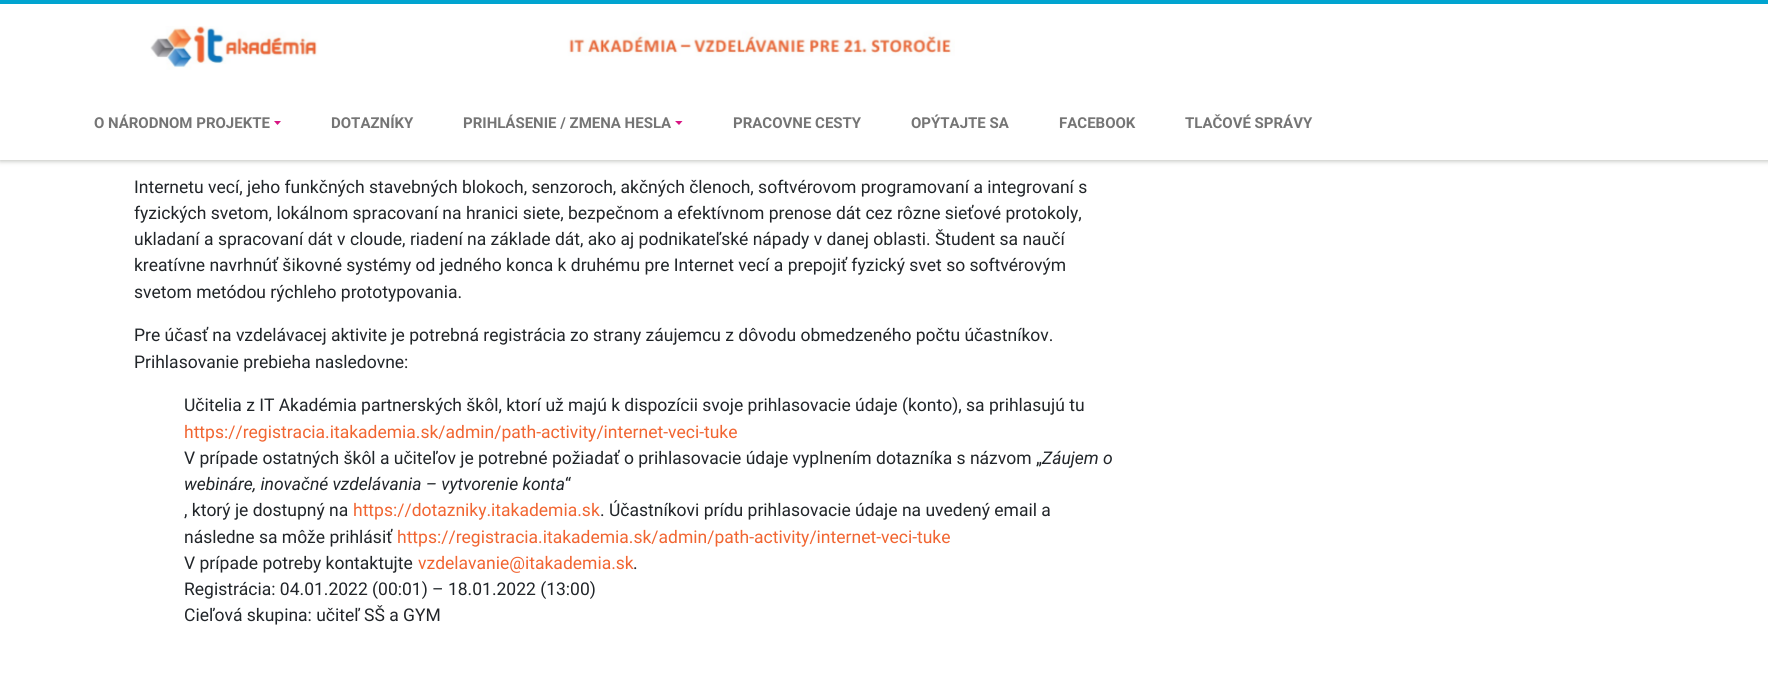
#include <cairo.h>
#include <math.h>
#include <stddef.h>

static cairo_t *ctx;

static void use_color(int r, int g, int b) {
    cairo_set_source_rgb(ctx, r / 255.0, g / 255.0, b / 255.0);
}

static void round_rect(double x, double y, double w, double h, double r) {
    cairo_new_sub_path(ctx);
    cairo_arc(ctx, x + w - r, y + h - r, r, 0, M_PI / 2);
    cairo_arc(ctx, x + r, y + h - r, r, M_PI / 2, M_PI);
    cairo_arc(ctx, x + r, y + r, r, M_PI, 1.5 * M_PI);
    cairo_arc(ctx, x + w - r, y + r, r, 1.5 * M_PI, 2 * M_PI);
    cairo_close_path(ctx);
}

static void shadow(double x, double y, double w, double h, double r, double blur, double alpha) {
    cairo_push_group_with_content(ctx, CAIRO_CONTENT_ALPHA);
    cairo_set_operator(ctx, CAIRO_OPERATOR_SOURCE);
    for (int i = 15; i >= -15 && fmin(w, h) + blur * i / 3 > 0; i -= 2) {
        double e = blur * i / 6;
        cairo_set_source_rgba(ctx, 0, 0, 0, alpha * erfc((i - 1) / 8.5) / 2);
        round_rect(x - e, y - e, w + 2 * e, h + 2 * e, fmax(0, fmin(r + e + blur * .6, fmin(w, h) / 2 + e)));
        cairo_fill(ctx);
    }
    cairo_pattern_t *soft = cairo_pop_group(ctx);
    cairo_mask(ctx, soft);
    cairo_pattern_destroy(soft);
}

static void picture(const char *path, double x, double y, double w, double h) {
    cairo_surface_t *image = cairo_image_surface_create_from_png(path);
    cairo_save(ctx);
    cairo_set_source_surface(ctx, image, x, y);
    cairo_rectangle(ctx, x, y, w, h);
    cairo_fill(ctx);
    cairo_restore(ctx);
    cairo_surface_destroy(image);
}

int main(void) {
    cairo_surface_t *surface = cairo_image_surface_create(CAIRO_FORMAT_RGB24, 1768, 687);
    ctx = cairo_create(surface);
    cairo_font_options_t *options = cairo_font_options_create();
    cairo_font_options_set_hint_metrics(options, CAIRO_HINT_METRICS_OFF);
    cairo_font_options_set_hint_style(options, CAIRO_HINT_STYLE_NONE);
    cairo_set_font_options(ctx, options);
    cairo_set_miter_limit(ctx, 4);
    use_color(255, 255, 255);
    cairo_paint(ctx);
    use_color(167, 169, 164);
    shadow(0, 1, 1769, 160, 0, 2.5, 0.75);
    use_color(255, 255, 255);
    cairo_rectangle(ctx, 0, 4, 1768, 156);
    cairo_fill(ctx);
    use_color(0, 164, 208);
    cairo_rectangle(ctx, 0, 0, 1768, 4);
    cairo_fill(ctx);
    picture("img1.png", 150, 26, 805, 44);
    cairo_select_font_face(ctx, "Roboto", CAIRO_FONT_SLANT_NORMAL, CAIRO_FONT_WEIGHT_BOLD);
    cairo_set_font_size(ctx, 15);
    use_color(117, 117, 117);
    cairo_move_to(ctx, 94, 128);
    cairo_show_text(ctx, "O NÁRODNOM PROJEKTE");
    use_color(215, 22, 131);
    cairo_new_path(ctx);
    cairo_move_to(ctx, 274, 121);
    cairo_line_to(ctx, 281, 121);
    cairo_line_to(ctx, 277.5, 125);
    cairo_close_path(ctx);
    cairo_fill(ctx);
    use_color(117, 117, 117);
    cairo_move_to(ctx, 331, 128);
    cairo_show_text(ctx, "DOTAZNÍKY");
    cairo_move_to(ctx, 463, 128);
    cairo_show_text(ctx, "PRIHLÁSENIE / ZMENA HESLA");
    use_color(215, 22, 131);
    cairo_new_path(ctx);
    cairo_move_to(ctx, 675, 121);
    cairo_line_to(ctx, 682.5, 121);
    cairo_line_to(ctx, 679, 125);
    cairo_close_path(ctx);
    cairo_fill(ctx);
    use_color(117, 117, 117);
    cairo_move_to(ctx, 733, 128);
    cairo_show_text(ctx, "PRACOVNE CESTY");
    cairo_move_to(ctx, 911, 128);
    cairo_show_text(ctx, "OPÝTAJTE SA");
    cairo_move_to(ctx, 1059, 128);
    cairo_show_text(ctx, "FACEBOOK");
    cairo_move_to(ctx, 1185, 128);
    cairo_show_text(ctx, "TLAČOVÉ SPRÁVY");
    cairo_select_font_face(ctx, "Roboto", CAIRO_FONT_SLANT_NORMAL, CAIRO_FONT_WEIGHT_NORMAL);
    cairo_set_font_size(ctx, 17.5);
    use_color(33, 37, 41);
    cairo_move_to(ctx, 134, 193);
    cairo_show_text(ctx, "Internetu vecí, jeho funkčných stavebných blokoch, senzoroch, akčných členoch, softvérovom programovaní a integrovaní s");
    cairo_move_to(ctx, 134, 219);
    cairo_show_text(ctx, "fyzických svetom, lokálnom spracovaní na hranici siete, bezpečnom a efektívnom prenose dát cez rôzne sieťové protokoly,");
    cairo_move_to(ctx, 134, 245);
    cairo_show_text(ctx, "ukladaní a spracovaní dát v cloude, riadení na základe dát, ako aj podnikateľské nápady v danej oblasti. Študent sa naučí");
    cairo_move_to(ctx, 134, 271);
    cairo_show_text(ctx, "kreatívne navrhnúť šikovné systémy od jedného konca k druhému pre Internet vecí a prepojiť fyzický svet so softvérovým");
    cairo_move_to(ctx, 134, 298);
    cairo_show_text(ctx, "svetom metódou rýchleho prototypovania.");
    cairo_move_to(ctx, 134, 341);
    cairo_show_text(ctx, "Pre účasť na vzdelávacej aktivite je potrebná registrácia zo strany záujemcu z dôvodu obmedzeného počtu účastníkov.");
    cairo_move_to(ctx, 134, 368);
    cairo_show_text(ctx, "Prihlasovanie prebieha nasledovne:");
    cairo_move_to(ctx, 184, 411);
    cairo_show_text(ctx, "Učitelia z IT Akadémia partnerských škôl, ktorí už majú k dispozícii svoje prihlasovacie údaje (konto), sa prihlasujú tu");
    use_color(241, 101, 49);
    cairo_move_to(ctx, 184, 438);
    cairo_show_text(ctx, "https://registracia.itakademia.sk/admin/path-activity/internet-veci-tuke");
    use_color(33, 37, 41);
    cairo_move_to(ctx, 184, 464);
    cairo_show_text(ctx, "V prípade ostatných škôl a učiteľov je potrebné požiadať o prihlasovacie údaje vyplnením dotazníka s názvom „");
    cairo_select_font_face(ctx, "Roboto", CAIRO_FONT_SLANT_ITALIC, CAIRO_FONT_WEIGHT_NORMAL);
    cairo_move_to(ctx, 1042, 464);
    cairo_show_text(ctx, "Záujem o");
    cairo_move_to(ctx, 184, 490);
    cairo_show_text(ctx, "webináre, inovačné vzdelávania – vytvorenie konta");
    cairo_select_font_face(ctx, "Roboto", CAIRO_FONT_SLANT_NORMAL, CAIRO_FONT_WEIGHT_NORMAL);
    cairo_move_to(ctx, 565, 490);
    cairo_show_text(ctx, "“");
    cairo_move_to(ctx, 184, 516);
    cairo_show_text(ctx, ", ktorý je dostupný na");
    use_color(241, 101, 49);
    cairo_move_to(ctx, 353, 516);
    cairo_show_text(ctx, "https://dotazniky.itakademia.sk");
    use_color(33, 37, 41);
    cairo_move_to(ctx, 600, 516);
    cairo_show_text(ctx, ". Účastníkovi prídu prihlasovacie údaje na uvedený email a");
    cairo_move_to(ctx, 184, 543);
    cairo_show_text(ctx, "následne sa môže prihlásiť");
    use_color(241, 101, 49);
    cairo_move_to(ctx, 397, 543);
    cairo_show_text(ctx, "https://registracia.itakademia.sk/admin/path-activity/internet-veci-tuke");
    use_color(33, 37, 41);
    cairo_move_to(ctx, 184, 569);
    cairo_show_text(ctx, "V prípade potreby kontaktujte");
    use_color(241, 101, 49);
    cairo_move_to(ctx, 418, 569);
    cairo_show_text(ctx, "vzdelavanie@itakademia.sk");
    use_color(33, 37, 41);
    cairo_move_to(ctx, 633, 569);
    cairo_show_text(ctx, ".");
    cairo_move_to(ctx, 184, 595);
    cairo_show_text(ctx, "Registrácia: 04.01.2022 (00:01) – 18.01.2022 (13:00)");
    cairo_move_to(ctx, 184, 621);
    cairo_show_text(ctx, "Cieľová skupina: učiteľ SŠ a GYM");
    cairo_surface_write_to_png(surface, "result.png");
    cairo_font_options_destroy(options);
    cairo_destroy(ctx);
    cairo_surface_destroy(surface);
    return 0;
}
